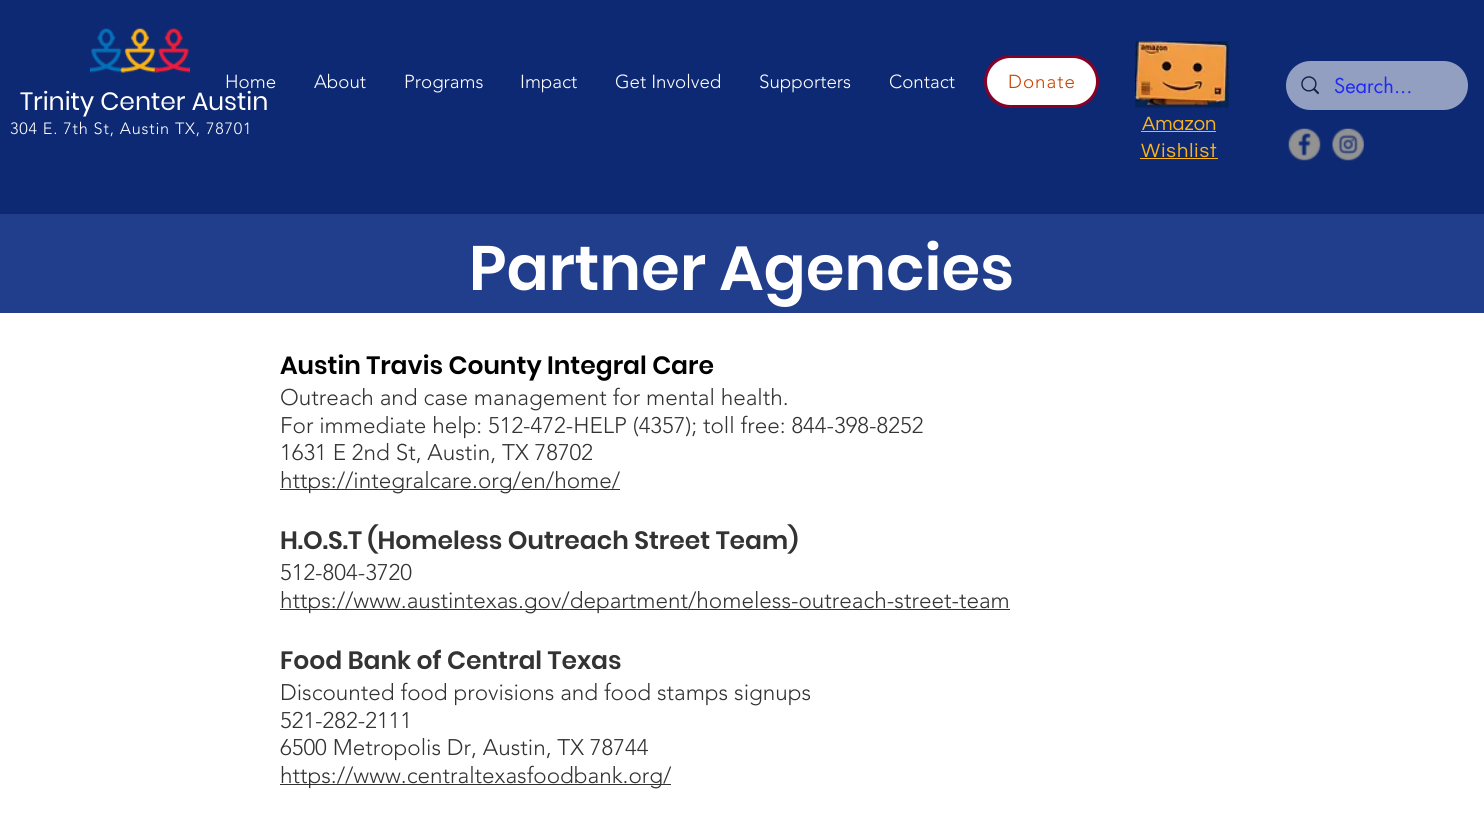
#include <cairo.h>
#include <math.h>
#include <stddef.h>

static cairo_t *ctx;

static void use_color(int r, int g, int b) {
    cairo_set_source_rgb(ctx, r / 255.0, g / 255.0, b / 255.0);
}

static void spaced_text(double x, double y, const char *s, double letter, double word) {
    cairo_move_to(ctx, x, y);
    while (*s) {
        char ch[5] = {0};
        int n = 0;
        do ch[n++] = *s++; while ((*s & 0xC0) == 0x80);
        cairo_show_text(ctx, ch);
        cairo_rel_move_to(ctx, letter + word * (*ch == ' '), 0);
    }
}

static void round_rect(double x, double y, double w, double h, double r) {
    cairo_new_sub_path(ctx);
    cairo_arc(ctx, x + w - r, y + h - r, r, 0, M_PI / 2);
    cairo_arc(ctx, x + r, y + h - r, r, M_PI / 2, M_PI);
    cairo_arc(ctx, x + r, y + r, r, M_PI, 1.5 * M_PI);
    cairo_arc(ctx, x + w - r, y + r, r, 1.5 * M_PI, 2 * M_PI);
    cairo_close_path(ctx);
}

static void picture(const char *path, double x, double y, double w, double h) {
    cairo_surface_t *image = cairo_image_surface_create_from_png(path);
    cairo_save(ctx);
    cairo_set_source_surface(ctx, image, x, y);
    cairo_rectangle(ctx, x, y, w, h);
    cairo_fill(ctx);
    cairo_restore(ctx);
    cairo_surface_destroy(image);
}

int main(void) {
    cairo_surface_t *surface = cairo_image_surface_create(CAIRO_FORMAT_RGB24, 1484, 826);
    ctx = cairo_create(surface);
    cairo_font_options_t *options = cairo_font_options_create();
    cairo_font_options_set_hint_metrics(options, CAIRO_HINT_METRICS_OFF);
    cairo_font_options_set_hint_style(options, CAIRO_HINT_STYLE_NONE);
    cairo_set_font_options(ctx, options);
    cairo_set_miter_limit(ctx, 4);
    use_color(255, 255, 255);
    cairo_paint(ctx);
    use_color(14, 41, 115);
    cairo_rectangle(ctx, 0, 0, 1484, 214);
    cairo_fill(ctx);
    picture("img1.png", 90, 28, 100, 45);
    cairo_select_font_face(ctx, "Poppins", CAIRO_FONT_SLANT_NORMAL, CAIRO_FONT_WEIGHT_NORMAL);
    cairo_set_font_size(ctx, 25);
    use_color(255, 255, 255);
    cairo_move_to(ctx, 20, 110);
    cairo_show_text(ctx, "Trinity Center Austin");
    cairo_select_font_face(ctx, "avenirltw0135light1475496 Light", CAIRO_FONT_SLANT_NORMAL, CAIRO_FONT_WEIGHT_NORMAL);
    cairo_set_font_size(ctx, 16.25);
    spaced_text(10, 134, "304 E. 7th St, Austin TX, 78701", 0.8, 0);
    cairo_set_font_size(ctx, 18.75);
    cairo_move_to(ctx, 225, 88);
    cairo_show_text(ctx, "Home");
    cairo_move_to(ctx, 314, 88);
    cairo_show_text(ctx, "About");
    cairo_move_to(ctx, 404, 88);
    cairo_show_text(ctx, "Programs");
    cairo_move_to(ctx, 520, 88);
    cairo_show_text(ctx, "Impact");
    cairo_move_to(ctx, 615, 88);
    cairo_show_text(ctx, "Get Involved");
    cairo_move_to(ctx, 759, 88);
    cairo_show_text(ctx, "Supporters");
    cairo_move_to(ctx, 889, 88);
    cairo_show_text(ctx, "Contact");
    round_rect(985.5, 56.5, 112, 50, 25);
    cairo_fill_preserve(ctx);
    use_color(135, 0, 38);
    cairo_set_line_width(ctx, 3);
    cairo_stroke(ctx);
    use_color(199, 67, 0);
    spaced_text(1008, 88, "Donate", 1, 0);
    picture("img2.png", 1135, 41, 94, 67);
    use_color(147, 159, 192);
    round_rect(1286, 61, 182, 49, 24.5);
    cairo_fill(ctx);
    picture("img3.png", 1301, 76, 18, 19);
    cairo_select_font_face(ctx, "futura", CAIRO_FONT_SLANT_NORMAL, CAIRO_FONT_WEIGHT_NORMAL);
    cairo_set_font_size(ctx, 20);
    use_color(31, 43, 243);
    cairo_move_to(ctx, 1334, 93);
    cairo_show_text(ctx, "Search...");
    cairo_select_font_face(ctx, "Questrial", CAIRO_FONT_SLANT_NORMAL, CAIRO_FONT_WEIGHT_NORMAL);
    use_color(252, 181, 25);
    cairo_move_to(ctx, 1142, 130);
    cairo_show_text(ctx, "Amazon");
    cairo_rectangle(ctx, 1141, 131, 75, 1);
    cairo_fill(ctx);
    spaced_text(1141, 157, "Wishlist", 1, 0);
    cairo_rectangle(ctx, 1140, 158, 78, 1);
    cairo_fill(ctx);
    picture("img4.png", 1288, 128, 33, 33);
    picture("img5.png", 1331, 128, 33, 33);
    use_color(33, 62, 140);
    cairo_rectangle(ctx, 0, 214, 1484, 99);
    cairo_fill(ctx);
    cairo_select_font_face(ctx, "Poppins SemiBold", CAIRO_FONT_SLANT_NORMAL, CAIRO_FONT_WEIGHT_NORMAL);
    cairo_set_font_size(ctx, 62.5);
    use_color(255, 255, 255);
    cairo_move_to(ctx, 469, 290);
    cairo_show_text(ctx, "Partner Agencies");
    cairo_set_font_size(ctx, 25);
    use_color(0, 0, 0);
    cairo_move_to(ctx, 280, 374);
    cairo_show_text(ctx, "Austin Travis County Integral Care");
    cairo_select_font_face(ctx, "avenirltw0135light1475496 Light", CAIRO_FONT_SLANT_NORMAL, CAIRO_FONT_WEIGHT_NORMAL);
    cairo_set_font_size(ctx, 22.5);
    use_color(51, 51, 51);
    cairo_move_to(ctx, 280, 405);
    cairo_show_text(ctx, "Outreach and case management for mental health.");
    cairo_move_to(ctx, 280, 433);
    cairo_show_text(ctx, "For immediate help: 512-472-HELP (4357); toll free: 844-398-8252");
    cairo_move_to(ctx, 280, 460);
    cairo_show_text(ctx, "1631 E 2nd St, Austin, TX 78702");
    cairo_rectangle(ctx, 280, 489, 340, 1);
    cairo_fill(ctx);
    cairo_move_to(ctx, 280, 488);
    cairo_show_text(ctx, "https://integralcare.org/en/home/");
    cairo_select_font_face(ctx, "Poppins SemiBold", CAIRO_FONT_SLANT_NORMAL, CAIRO_FONT_WEIGHT_NORMAL);
    cairo_set_font_size(ctx, 25);
    cairo_move_to(ctx, 280, 549);
    cairo_show_text(ctx, "H.O.S.T (Homeless Outreach Street Team)");
    cairo_select_font_face(ctx, "avenirltw0135light1475496 Light", CAIRO_FONT_SLANT_NORMAL, CAIRO_FONT_WEIGHT_NORMAL);
    cairo_set_font_size(ctx, 22.5);
    cairo_move_to(ctx, 280, 580);
    cairo_show_text(ctx, "512-804-3720");
    cairo_rectangle(ctx, 280, 609, 730, 1);
    cairo_fill(ctx);
    cairo_move_to(ctx, 280, 608);
    cairo_show_text(ctx, "https://www.austintexas.gov/department/homeless-outreach-street-team");
    cairo_select_font_face(ctx, "Poppins SemiBold", CAIRO_FONT_SLANT_NORMAL, CAIRO_FONT_WEIGHT_NORMAL);
    cairo_set_font_size(ctx, 25);
    cairo_move_to(ctx, 280, 669);
    cairo_show_text(ctx, "Food Bank of Central Texas");
    cairo_select_font_face(ctx, "avenirltw0135light1475496 Light", CAIRO_FONT_SLANT_NORMAL, CAIRO_FONT_WEIGHT_NORMAL);
    cairo_set_font_size(ctx, 22.5);
    cairo_move_to(ctx, 280, 700);
    cairo_show_text(ctx, "Discounted food provisions and food stamps signups");
    cairo_move_to(ctx, 280, 728);
    cairo_show_text(ctx, "521-282-2111");
    cairo_move_to(ctx, 280, 755);
    cairo_show_text(ctx, "6500 Metropolis Dr, Austin, TX 78744");
    cairo_rectangle(ctx, 280, 784, 391, 1);
    cairo_fill(ctx);
    cairo_move_to(ctx, 280, 783);
    cairo_show_text(ctx, "https://www.centraltexasfoodbank.org/");
    cairo_surface_write_to_png(surface, "result.png");
    cairo_font_options_destroy(options);
    cairo_destroy(ctx);
    cairo_surface_destroy(surface);
    return 0;
}
